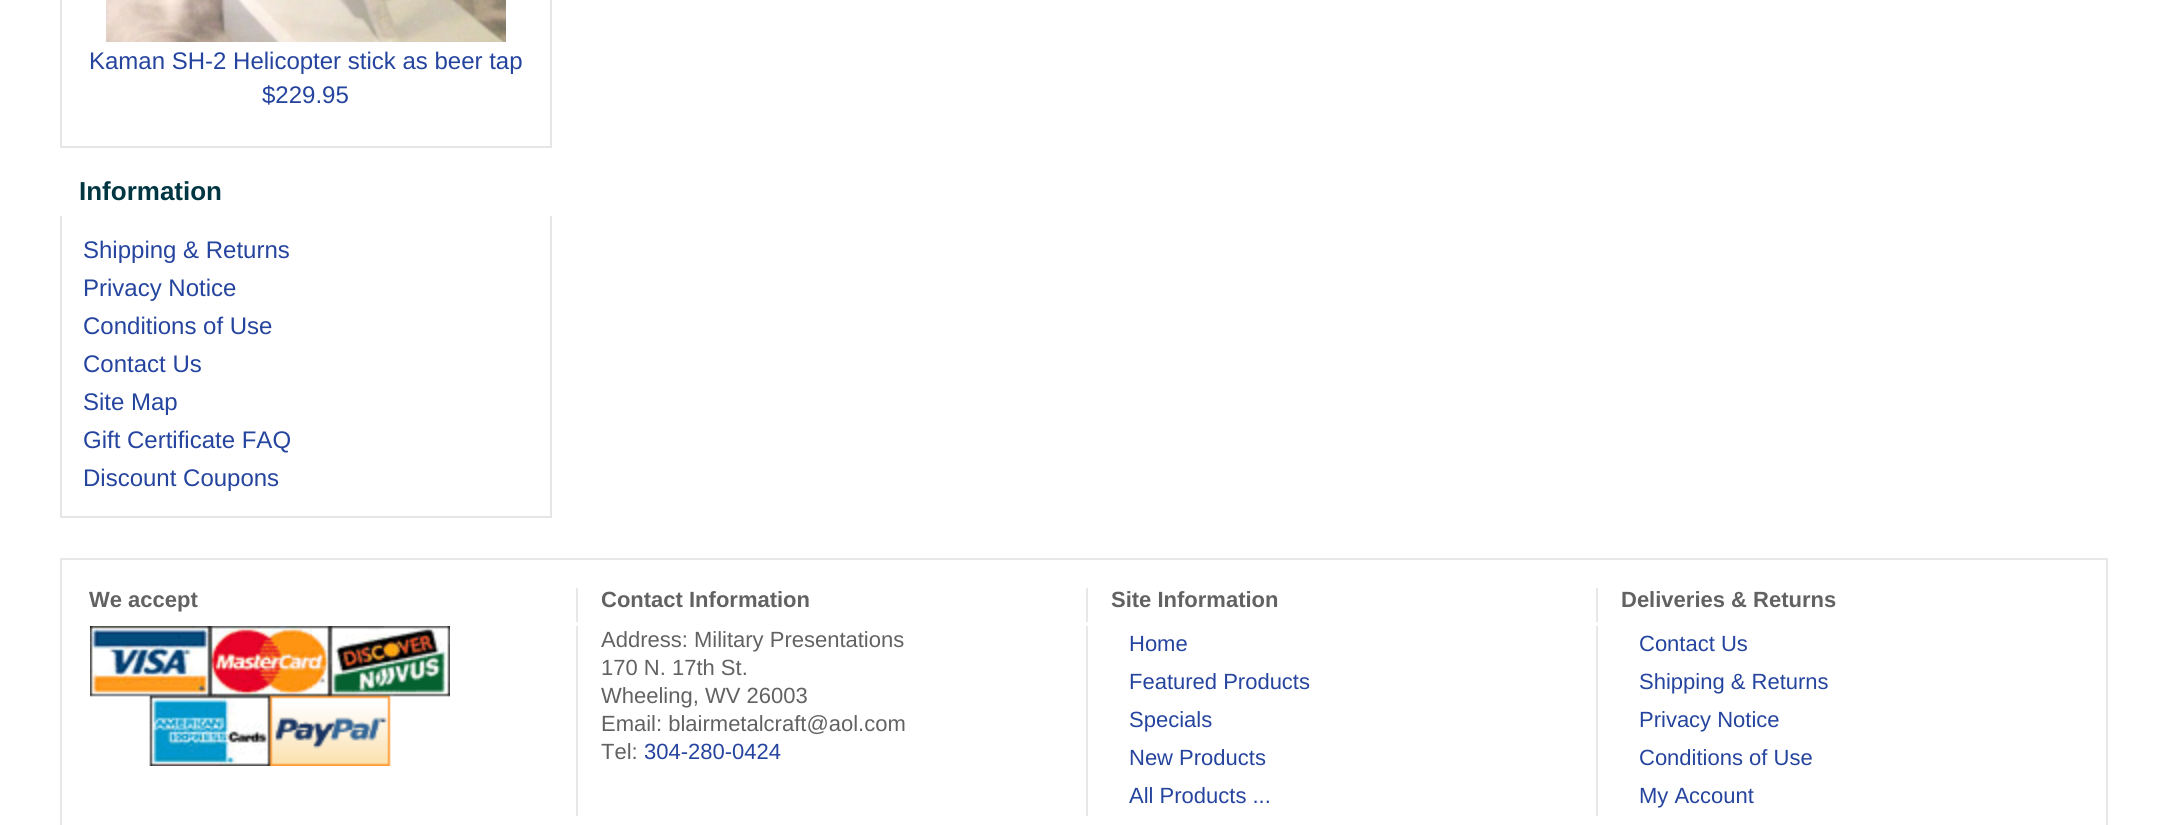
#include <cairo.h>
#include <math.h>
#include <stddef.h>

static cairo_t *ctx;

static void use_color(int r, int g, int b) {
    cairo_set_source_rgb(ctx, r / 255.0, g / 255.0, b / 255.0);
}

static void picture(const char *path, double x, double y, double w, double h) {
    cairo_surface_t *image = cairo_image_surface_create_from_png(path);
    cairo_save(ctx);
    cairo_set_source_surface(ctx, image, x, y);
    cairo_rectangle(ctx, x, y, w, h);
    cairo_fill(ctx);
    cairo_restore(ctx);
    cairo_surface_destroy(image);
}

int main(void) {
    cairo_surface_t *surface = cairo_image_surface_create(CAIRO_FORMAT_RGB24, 2166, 825);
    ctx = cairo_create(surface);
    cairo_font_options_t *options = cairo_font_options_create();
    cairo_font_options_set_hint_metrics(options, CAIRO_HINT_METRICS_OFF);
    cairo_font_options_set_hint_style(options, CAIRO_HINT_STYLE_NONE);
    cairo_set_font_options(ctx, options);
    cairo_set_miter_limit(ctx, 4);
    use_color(255, 255, 255);
    cairo_paint(ctx);
    use_color(230, 230, 230);
    cairo_rectangle(ctx, 550, 0, 2, 148);
    cairo_fill(ctx);
    cairo_rectangle(ctx, 60, 146, 492, 2);
    cairo_fill(ctx);
    cairo_rectangle(ctx, 60, 0, 2, 148);
    cairo_fill(ctx);
    picture("img1.png", 106, 0, 400, 42);
    cairo_select_font_face(ctx, "Liberation Sans", CAIRO_FONT_SLANT_NORMAL, CAIRO_FONT_WEIGHT_NORMAL);
    cairo_set_font_size(ctx, 24);
    use_color(37, 68, 158);
    cairo_move_to(ctx, 89, 69);
    cairo_show_text(ctx, "Kaman SH-2 Helicopter stick as beer tap");
    cairo_move_to(ctx, 262, 103);
    cairo_show_text(ctx, "$229.95");
    cairo_select_font_face(ctx, "Liberation Sans", CAIRO_FONT_SLANT_NORMAL, CAIRO_FONT_WEIGHT_BOLD);
    cairo_set_font_size(ctx, 26);
    use_color(0, 53, 66);
    cairo_move_to(ctx, 79, 200);
    cairo_show_text(ctx, "Information");
    use_color(230, 230, 230);
    cairo_rectangle(ctx, 550, 216, 2, 302);
    cairo_fill(ctx);
    cairo_rectangle(ctx, 60, 516, 492, 2);
    cairo_fill(ctx);
    cairo_rectangle(ctx, 60, 216, 2, 302);
    cairo_fill(ctx);
    cairo_select_font_face(ctx, "Liberation Sans", CAIRO_FONT_SLANT_NORMAL, CAIRO_FONT_WEIGHT_NORMAL);
    cairo_set_font_size(ctx, 24);
    use_color(37, 68, 158);
    cairo_move_to(ctx, 83, 258);
    cairo_show_text(ctx, "Shipping & Returns");
    cairo_move_to(ctx, 83, 296);
    cairo_show_text(ctx, "Privacy Notice");
    cairo_move_to(ctx, 83, 334);
    cairo_show_text(ctx, "Conditions of Use");
    cairo_move_to(ctx, 83, 372);
    cairo_show_text(ctx, "Contact Us");
    cairo_move_to(ctx, 83, 410);
    cairo_show_text(ctx, "Site Map");
    cairo_move_to(ctx, 83, 448);
    cairo_show_text(ctx, "Gift Certificate FAQ");
    cairo_move_to(ctx, 83, 486);
    cairo_show_text(ctx, "Discount Coupons");
    cairo_rectangle(ctx, 61, 559, 2046, 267);
    use_color(231, 231, 231);
    cairo_stroke(ctx);
    cairo_select_font_face(ctx, "Liberation Sans", CAIRO_FONT_SLANT_NORMAL, CAIRO_FONT_WEIGHT_BOLD);
    cairo_set_font_size(ctx, 22);
    use_color(98, 98, 98);
    cairo_move_to(ctx, 89, 607);
    cairo_show_text(ctx, "We accept");
    use_color(231, 231, 231);
    cairo_rectangle(ctx, 576, 588, 2, 34);
    cairo_fill(ctx);
    use_color(98, 98, 98);
    cairo_move_to(ctx, 601, 607);
    cairo_show_text(ctx, "Contact Information");
    use_color(231, 231, 231);
    cairo_rectangle(ctx, 1086, 588, 2, 34);
    cairo_fill(ctx);
    use_color(98, 98, 98);
    cairo_move_to(ctx, 1111, 607);
    cairo_show_text(ctx, "Site Information");
    use_color(231, 231, 231);
    cairo_rectangle(ctx, 1596, 588, 2, 34);
    cairo_fill(ctx);
    use_color(98, 98, 98);
    cairo_move_to(ctx, 1621, 607);
    cairo_show_text(ctx, "Deliveries & Returns");
    picture("img2.png", 90, 626, 360, 140);
    use_color(231, 231, 231);
    cairo_rectangle(ctx, 576, 626, 2, 190);
    cairo_fill(ctx);
    cairo_select_font_face(ctx, "Liberation Sans", CAIRO_FONT_SLANT_NORMAL, CAIRO_FONT_WEIGHT_NORMAL);
    use_color(98, 98, 98);
    cairo_move_to(ctx, 601, 647);
    cairo_show_text(ctx, "Address: Military Presentations");
    cairo_move_to(ctx, 601, 675);
    cairo_show_text(ctx, "170 N. 17th St.");
    cairo_move_to(ctx, 601, 703);
    cairo_show_text(ctx, "Wheeling, WV 26003");
    cairo_move_to(ctx, 601, 731);
    cairo_show_text(ctx, "Email: blairmetalcraft@aol.com");
    cairo_move_to(ctx, 601, 759);
    cairo_show_text(ctx, "Tel:");
    use_color(37, 68, 158);
    cairo_move_to(ctx, 644, 759);
    cairo_show_text(ctx, "304-280-0424");
    use_color(231, 231, 231);
    cairo_rectangle(ctx, 1086, 626, 2, 190);
    cairo_fill(ctx);
    use_color(37, 68, 158);
    cairo_move_to(ctx, 1129, 651);
    cairo_show_text(ctx, "Home");
    cairo_move_to(ctx, 1129, 689);
    cairo_show_text(ctx, "Featured Products");
    cairo_move_to(ctx, 1129, 727);
    cairo_show_text(ctx, "Specials");
    cairo_move_to(ctx, 1129, 765);
    cairo_show_text(ctx, "New Products");
    cairo_move_to(ctx, 1129, 803);
    cairo_show_text(ctx, "All Products ...");
    use_color(231, 231, 231);
    cairo_rectangle(ctx, 1596, 626, 2, 190);
    cairo_fill(ctx);
    use_color(37, 68, 158);
    cairo_move_to(ctx, 1639, 651);
    cairo_show_text(ctx, "Contact Us");
    cairo_move_to(ctx, 1639, 689);
    cairo_show_text(ctx, "Shipping & Returns");
    cairo_move_to(ctx, 1639, 727);
    cairo_show_text(ctx, "Privacy Notice");
    cairo_move_to(ctx, 1639, 765);
    cairo_show_text(ctx, "Conditions of Use");
    cairo_move_to(ctx, 1639, 803);
    cairo_show_text(ctx, "My Account");
    cairo_surface_write_to_png(surface, "result.png");
    cairo_font_options_destroy(options);
    cairo_destroy(ctx);
    cairo_surface_destroy(surface);
    return 0;
}
